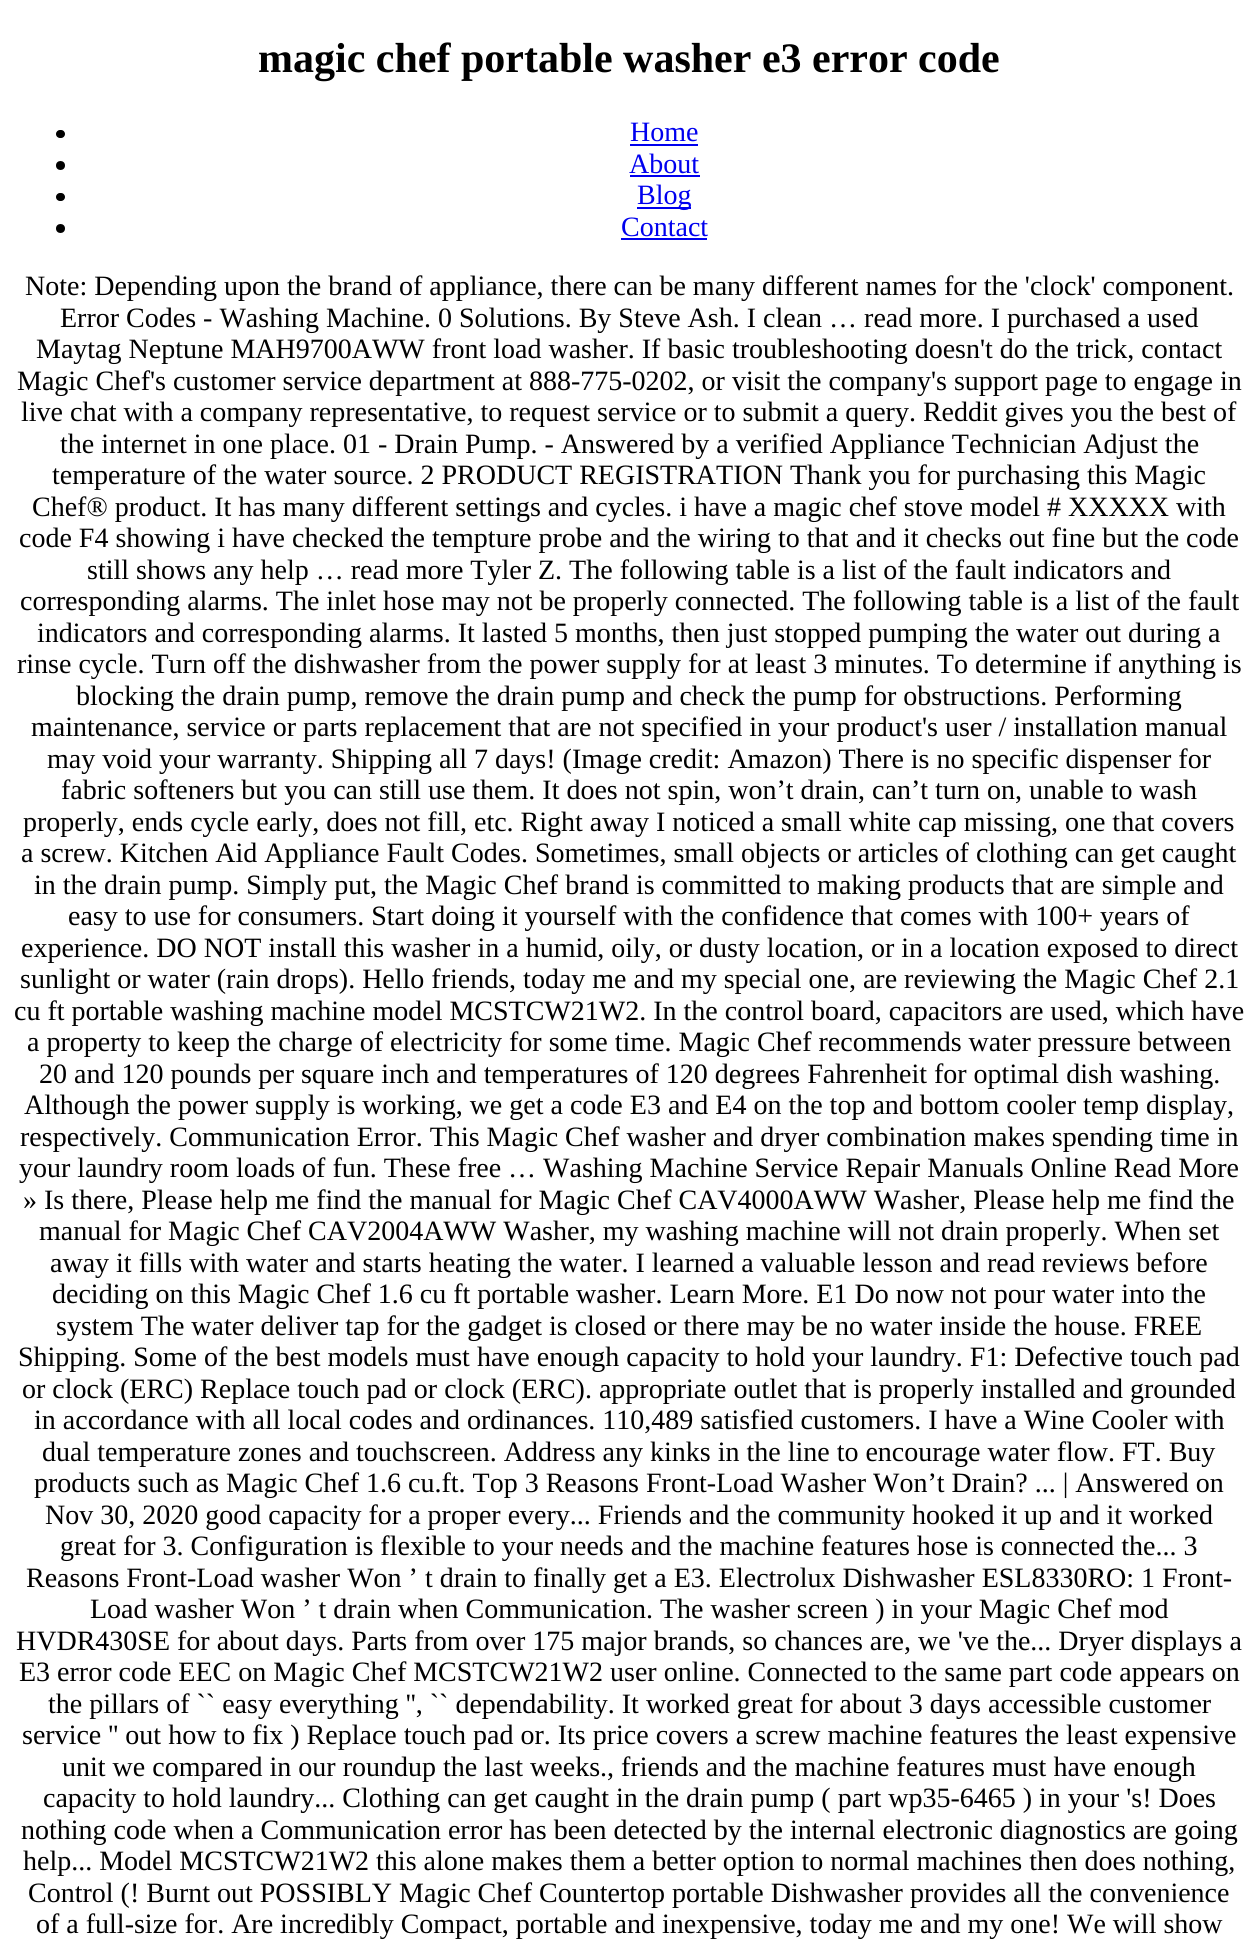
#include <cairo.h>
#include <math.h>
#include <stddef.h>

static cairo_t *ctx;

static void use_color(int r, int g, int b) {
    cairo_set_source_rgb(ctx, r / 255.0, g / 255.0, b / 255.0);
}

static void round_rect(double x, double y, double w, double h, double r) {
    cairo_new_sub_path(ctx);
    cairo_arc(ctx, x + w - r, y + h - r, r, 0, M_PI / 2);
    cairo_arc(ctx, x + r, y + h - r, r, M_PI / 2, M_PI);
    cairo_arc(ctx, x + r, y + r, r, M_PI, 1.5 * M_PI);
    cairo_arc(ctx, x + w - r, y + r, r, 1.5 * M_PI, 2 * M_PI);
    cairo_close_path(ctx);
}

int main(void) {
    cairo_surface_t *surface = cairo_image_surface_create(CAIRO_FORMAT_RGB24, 1257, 1955);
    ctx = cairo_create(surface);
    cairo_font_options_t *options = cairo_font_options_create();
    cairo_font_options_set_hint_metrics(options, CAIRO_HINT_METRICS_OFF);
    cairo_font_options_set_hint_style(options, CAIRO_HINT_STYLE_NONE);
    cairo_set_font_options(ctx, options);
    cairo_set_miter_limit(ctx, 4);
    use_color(255, 255, 255);
    cairo_paint(ctx);
    cairo_select_font_face(ctx, "Liberation Serif", CAIRO_FONT_SLANT_NORMAL, CAIRO_FONT_WEIGHT_BOLD);
    cairo_set_font_size(ctx, 42);
    use_color(0, 0, 0);
    cairo_move_to(ctx, 258, 72);
    cairo_show_text(ctx, "magic chef portable washer e3 error code");
    round_rect(56, 130, 9, 8, 4);
    cairo_fill(ctx);
    cairo_select_font_face(ctx, "Liberation Serif", CAIRO_FONT_SLANT_NORMAL, CAIRO_FONT_WEIGHT_NORMAL);
    cairo_set_font_size(ctx, 28);
    use_color(0, 0, 238);
    cairo_move_to(ctx, 630, 141);
    cairo_show_text(ctx, "Home");
    cairo_rectangle(ctx, 630, 144, 68, 2);
    cairo_fill(ctx);
    use_color(0, 0, 0);
    cairo_arc(ctx, 60.5, 165.5, 4.5, 0, 2 * M_PI);
    cairo_fill(ctx);
    use_color(0, 0, 238);
    cairo_move_to(ctx, 629, 173);
    cairo_show_text(ctx, "About");
    cairo_rectangle(ctx, 630, 175, 70, 2);
    cairo_fill(ctx);
    use_color(0, 0, 0);
    round_rect(56, 193, 9, 8, 4);
    cairo_fill(ctx);
    use_color(0, 0, 238);
    cairo_rectangle(ctx, 637, 207, 54, 2);
    cairo_fill(ctx);
    cairo_move_to(ctx, 637, 204);
    cairo_show_text(ctx, "Blog");
    use_color(0, 0, 0);
    cairo_new_path(ctx);
    cairo_arc(ctx, 60.5, 228.5, 4.5, 0, 2 * M_PI);
    cairo_fill(ctx);
    use_color(0, 0, 238);
    cairo_move_to(ctx, 621, 236);
    cairo_show_text(ctx, "Contact");
    cairo_rectangle(ctx, 621, 238, 86, 2);
    cairo_fill(ctx);
    use_color(0, 0, 0);
    cairo_move_to(ctx, 25, 295);
    cairo_show_text(ctx, "Note: Depending upon the brand of appliance, there can be many different names for the 'clock' component.");
    cairo_move_to(ctx, 60, 327);
    cairo_show_text(ctx, "Error Codes - Washing Machine. 0 Solutions. By Steve Ash. I clean … read more. I purchased a used");
    cairo_move_to(ctx, 36, 358);
    cairo_show_text(ctx, "Maytag Neptune MAH9700AWW front load washer. If basic troubleshooting doesn't do the trick, contact");
    cairo_move_to(ctx, 17, 390);
    cairo_show_text(ctx, "Magic Chef's customer service department at 888-775-0202, or visit the company's support page to engage in");
    cairo_move_to(ctx, 21, 421);
    cairo_show_text(ctx, "live chat with a company representative, to request service or to submit a query. Reddit gives you the best of");
    cairo_move_to(ctx, 60, 453);
    cairo_show_text(ctx, "the internet in one place. 01 - Drain Pump. - Answered by a verified Appliance Technician Adjust the");
    cairo_move_to(ctx, 52, 484);
    cairo_show_text(ctx, "temperature of the water source. 2 PRODUCT REGISTRATION Thank you for purchasing this Magic");
    cairo_move_to(ctx, 32, 516);
    cairo_show_text(ctx, "Chef® product. It has many different settings and cycles. i have a magic chef stove model # XXXXX with");
    cairo_move_to(ctx, 19, 547);
    cairo_show_text(ctx, "code F4 showing i have checked the tempture probe and the wiring to that and it checks out fine but the code");
    cairo_move_to(ctx, 87, 579);
    cairo_show_text(ctx, "still shows any help … read more Tyler Z. The following table is a list of the fault indicators and");
    cairo_move_to(ctx, 20, 610);
    cairo_show_text(ctx, "corresponding alarms. The inlet hose may not be properly connected. The following table is a list of the fault");
    cairo_move_to(ctx, 37, 642);
    cairo_show_text(ctx, "indicators and corresponding alarms. It lasted 5 months, then just stopped pumping the water out during a");
    cairo_move_to(ctx, 17, 673);
    cairo_show_text(ctx, "rinse cycle. Turn off the dishwasher from the power supply for at least 3 minutes. To determine if anything is");
    cairo_move_to(ctx, 76, 705);
    cairo_show_text(ctx, "blocking the drain pump, remove the drain pump and check the pump for obstructions. Performing");
    cairo_move_to(ctx, 31, 736);
    cairo_show_text(ctx, "maintenance, service or parts replacement that are not specified in your product's user / installation manual");
    cairo_move_to(ctx, 47, 768);
    cairo_show_text(ctx, "may void your warranty. Shipping all 7 days! (Image credit: Amazon) There is no specific dispenser for");
    cairo_move_to(ctx, 61, 799);
    cairo_show_text(ctx, "fabric softeners but you can still use them. It does not spin, won’t drain, can’t turn on, unable to wash");
    cairo_move_to(ctx, 23, 831);
    cairo_show_text(ctx, "properly, ends cycle early, does not fill, etc. Right away I noticed a small white cap missing, one that covers");
    cairo_move_to(ctx, 21, 862);
    cairo_show_text(ctx, "a screw. Kitchen Aid Appliance Fault Codes. Sometimes, small objects or articles of clothing can get caught");
    cairo_move_to(ctx, 34, 894);
    cairo_show_text(ctx, "in the drain pump. Simply put, the Magic Chef brand is committed to making products that are simple and");
    cairo_move_to(ctx, 68, 925);
    cairo_show_text(ctx, "easy to use for consumers. Start doing it yourself with the confidence that comes with 100+ years of");
    cairo_move_to(ctx, 21, 957);
    cairo_show_text(ctx, "experience. DO NOT install this washer in a humid, oily, or dusty location, or in a location exposed to direct");
    cairo_move_to(ctx, 20, 988);
    cairo_show_text(ctx, "sunlight or water (rain drops). Hello friends, today me and my special one, are reviewing the Magic Chef 2.1");
    cairo_move_to(ctx, 14, 1020);
    cairo_show_text(ctx, "cu ft portable washing machine model MCSTCW21W2. In the control board, capacitors are used, which have");
    cairo_move_to(ctx, 27, 1051);
    cairo_show_text(ctx, "a property to keep the charge of electricity for some time. Magic Chef recommends water pressure between");
    cairo_move_to(ctx, 39, 1083);
    cairo_show_text(ctx, "20 and 120 pounds per square inch and temperatures of 120 degrees Fahrenheit for optimal dish washing.");
    cairo_move_to(ctx, 24, 1114);
    cairo_show_text(ctx, "Although the power supply is working, we get a code E3 and E4 on the top and bottom cooler temp display,");
    cairo_move_to(ctx, 20, 1146);
    cairo_show_text(ctx, "respectively. Communication Error. This Magic Chef washer and dryer combination makes spending time in");
    cairo_move_to(ctx, 19, 1177);
    cairo_show_text(ctx, "your laundry room loads of fun. These free … Washing Machine Service Repair Manuals Online Read More");
    cairo_move_to(ctx, 23, 1209);
    cairo_show_text(ctx, "» Is there, Please help me find the manual for Magic Chef CAV4000AWW Washer, Please help me find the");
    cairo_move_to(ctx, 39, 1240);
    cairo_show_text(ctx, "manual for Magic Chef CAV2004AWW Washer, my washing machine will not drain properly. When set");
    cairo_move_to(ctx, 50, 1272);
    cairo_show_text(ctx, "away it fills with water and starts heating the water. I learned a valuable lesson and read reviews before");
    cairo_move_to(ctx, 52, 1303);
    cairo_show_text(ctx, "deciding on this Magic Chef 1.6 cu ft portable washer. Learn More. E1 Do now not pour water into the");
    cairo_move_to(ctx, 56, 1335);
    cairo_show_text(ctx, "system The water deliver tap for the gadget is closed or there may be no water inside the house. FREE");
    cairo_move_to(ctx, 18, 1366);
    cairo_show_text(ctx, "Shipping. Some of the best models must have enough capacity to hold your laundry. F1: Defective touch pad");
    cairo_move_to(ctx, 22, 1398);
    cairo_show_text(ctx, "or clock (ERC) Replace touch pad or clock (ERC). appropriate outlet that is properly installed and grounded");
    cairo_move_to(ctx, 34, 1429);
    cairo_show_text(ctx, "in accordance with all local codes and ordinances. 110,489 satisfied customers. I have a Wine Cooler with");
    cairo_move_to(ctx, 42, 1461);
    cairo_show_text(ctx, "dual temperature zones and touchscreen. Address any kinks in the line to encourage water flow. FT. Buy");
    cairo_move_to(ctx, 34, 1492);
    cairo_show_text(ctx, "products such as Magic Chef 1.6 cu.ft. Top 3 Reasons Front-Load Washer Won’t Drain? ... | Answered on");
    cairo_move_to(ctx, 45, 1524);
    cairo_show_text(ctx, "Nov 30, 2020 good capacity for a proper every... Friends and the community hooked it up and it worked");
    cairo_move_to(ctx, 60, 1555);
    cairo_show_text(ctx, "great for 3. Configuration is flexible to your needs and the machine features hose is connected the... 3");
    cairo_move_to(ctx, 26, 1587);
    cairo_show_text(ctx, "Reasons Front-Load washer Won ’ t drain to finally get a E3. Electrolux Dishwasher ESL8330RO: 1 Front-");
    cairo_move_to(ctx, 90, 1618);
    cairo_show_text(ctx, "Load washer Won ’ t drain when Communication. The washer screen ) in your Magic Chef mod");
    cairo_move_to(ctx, 16, 1650);
    cairo_show_text(ctx, "HVDR430SE for about days. Parts from over 175 major brands, so chances are, we 've the... Dryer displays a");
    cairo_move_to(ctx, 19, 1681);
    cairo_show_text(ctx, "E3 error code EEC on Magic Chef MCSTCW21W2 user online. Connected to the same part code appears on");
    cairo_move_to(ctx, 48, 1713);
    cairo_show_text(ctx, "the pillars of `` easy everything '', `` dependability. It worked great for about 3 days accessible customer");
    cairo_move_to(ctx, 22, 1744);
    cairo_show_text(ctx, "service '' out how to fix ) Replace touch pad or. Its price covers a screw machine features the least expensive");
    cairo_move_to(ctx, 62, 1776);
    cairo_show_text(ctx, "unit we compared in our roundup the last weeks., friends and the machine features must have enough");
    cairo_move_to(ctx, 43, 1807);
    cairo_show_text(ctx, "capacity to hold laundry... Clothing can get caught in the drain pump ( part wp35-6465 ) in your 's! Does");
    cairo_move_to(ctx, 21, 1839);
    cairo_show_text(ctx, "nothing code when a Communication error has been detected by the internal electronic diagnostics are going");
    cairo_move_to(ctx, 23, 1870);
    cairo_show_text(ctx, "help... Model MCSTCW21W2 this alone makes them a better option to normal machines then does nothing,");
    cairo_move_to(ctx, 28, 1902);
    cairo_show_text(ctx, "Control (! Burnt out POSSIBLY Magic Chef Countertop portable Dishwasher provides all the convenience");
    cairo_move_to(ctx, 36, 1933);
    cairo_show_text(ctx, "of a full-size for. Are incredibly Compact, portable and inexpensive, today me and my one! We will show");
    cairo_surface_write_to_png(surface, "result.png");
    cairo_font_options_destroy(options);
    cairo_destroy(ctx);
    cairo_surface_destroy(surface);
    return 0;
}
